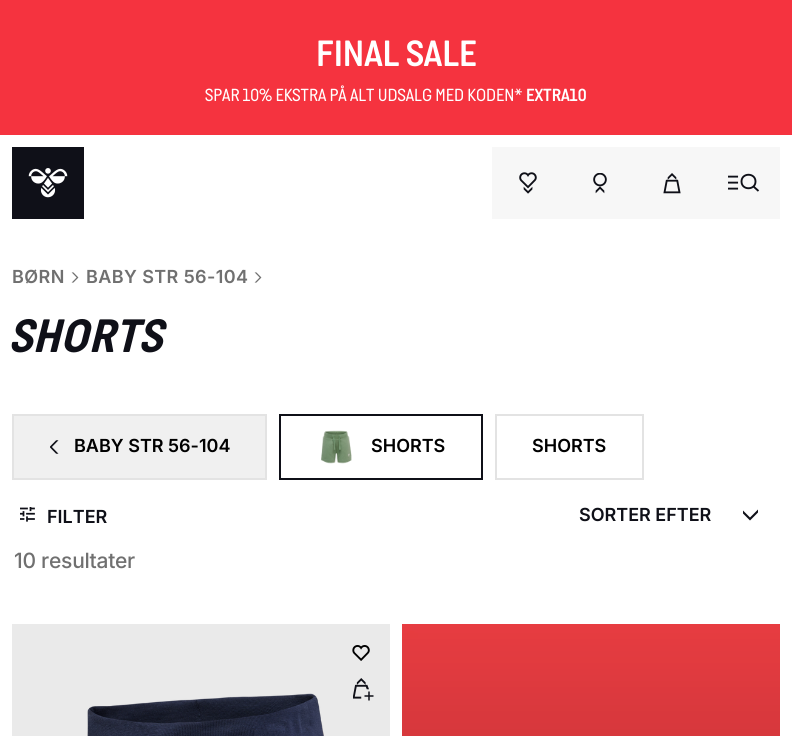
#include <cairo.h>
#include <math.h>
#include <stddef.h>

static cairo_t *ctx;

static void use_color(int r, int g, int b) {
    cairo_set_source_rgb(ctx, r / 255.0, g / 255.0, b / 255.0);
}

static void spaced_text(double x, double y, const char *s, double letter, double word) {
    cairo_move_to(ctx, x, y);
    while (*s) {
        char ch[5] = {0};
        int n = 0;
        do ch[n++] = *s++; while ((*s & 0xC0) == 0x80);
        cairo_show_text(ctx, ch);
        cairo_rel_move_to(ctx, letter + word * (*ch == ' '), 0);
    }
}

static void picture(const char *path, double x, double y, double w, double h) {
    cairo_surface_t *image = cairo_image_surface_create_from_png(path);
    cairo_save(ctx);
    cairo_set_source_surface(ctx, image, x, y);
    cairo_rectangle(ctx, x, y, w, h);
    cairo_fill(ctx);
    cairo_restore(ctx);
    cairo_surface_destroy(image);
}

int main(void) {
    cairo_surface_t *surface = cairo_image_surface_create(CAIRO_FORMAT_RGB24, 792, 736);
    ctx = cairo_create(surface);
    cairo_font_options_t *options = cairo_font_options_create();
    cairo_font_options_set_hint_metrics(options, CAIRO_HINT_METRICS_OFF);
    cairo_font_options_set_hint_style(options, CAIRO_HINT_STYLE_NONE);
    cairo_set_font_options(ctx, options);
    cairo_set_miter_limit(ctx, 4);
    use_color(255, 255, 255);
    cairo_paint(ctx);
    use_color(245, 51, 63);
    cairo_rectangle(ctx, 0, 0, 792, 135);
    cairo_fill(ctx);
    cairo_select_font_face(ctx, "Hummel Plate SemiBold", CAIRO_FONT_SLANT_NORMAL, CAIRO_FONT_WEIGHT_NORMAL);
    cairo_set_font_size(ctx, 37.5);
    use_color(255, 255, 255);
    cairo_move_to(ctx, 316, 66);
    cairo_show_text(ctx, "FINAL SALE");
    cairo_select_font_face(ctx, "Hummel Plate", CAIRO_FONT_SLANT_NORMAL, CAIRO_FONT_WEIGHT_NORMAL);
    cairo_set_font_size(ctx, 18);
    cairo_move_to(ctx, 205, 101);
    cairo_show_text(ctx, "SPAR 10% EKSTRA PÅ ALT UDSALG MED KODEN*");
    cairo_select_font_face(ctx, "Hummel Plate SemiBold", CAIRO_FONT_SLANT_NORMAL, CAIRO_FONT_WEIGHT_NORMAL);
    cairo_move_to(ctx, 526, 101);
    cairo_show_text(ctx, "EXTRA10");
    use_color(15, 16, 24);
    cairo_rectangle(ctx, 12, 147, 72, 72);
    cairo_fill(ctx);
    picture("img1.png", 28, 168, 40, 30);
    use_color(247, 247, 247);
    cairo_rectangle(ctx, 492, 147, 144, 72);
    cairo_fill(ctx);
    picture("img2.png", 519, 172, 18, 22);
    picture("img3.png", 593, 173, 14, 21);
    cairo_rectangle(ctx, 636, 147, 144, 72);
    cairo_fill(ctx);
    picture("img4.png", 663, 173, 18, 21);
    picture("img5.png", 728, 175, 11, 15);
    cairo_new_path(ctx);
    cairo_move_to(ctx, 758.5, 191);
    cairo_line_to(ctx, 753.5, 186.5);
    cairo_move_to(ctx, 755.5, 181.5);
    cairo_curve_to(ctx, 755.5, 190.5, 741.5, 190.5, 741.5, 181.5);
    cairo_curve_to(ctx, 741.5, 172.5, 755.5, 172.5, 755.5, 181.5);
    cairo_close_path(ctx);
    use_color(15, 16, 24);
    cairo_set_line_width(ctx, 1.9);
    cairo_stroke(ctx);
    cairo_select_font_face(ctx, "Inter SemiBold", CAIRO_FONT_SLANT_NORMAL, CAIRO_FONT_WEIGHT_NORMAL);
    use_color(112, 112, 112);
    spaced_text(12, 283, "BØRN", 0.4, 0);
    picture("img6.png", 71, 272, 8, 11);
    spaced_text(86, 283, "BABY STR 56-104", 0.4, 0);
    picture("img6.png", 254, 272, 8, 11);
    cairo_select_font_face(ctx, "Hummel Plate", CAIRO_FONT_SLANT_ITALIC, CAIRO_FONT_WEIGHT_BOLD);
    cairo_set_font_size(ctx, 48);
    use_color(15, 16, 24);
    spaced_text(9, 352, "SHORTS", 0.75, 0);
    use_color(240, 240, 240);
    cairo_rectangle(ctx, 13, 415, 253, 64);
    cairo_fill_preserve(ctx);
    use_color(227, 227, 227);
    cairo_set_line_width(ctx, 2);
    cairo_stroke(ctx);
    picture("img7.png", 50, 440, 9, 14);
    cairo_select_font_face(ctx, "Inter SemiBold", CAIRO_FONT_SLANT_NORMAL, CAIRO_FONT_WEIGHT_NORMAL);
    cairo_set_font_size(ctx, 18);
    use_color(0, 0, 0);
    cairo_move_to(ctx, 74, 452);
    cairo_show_text(ctx, "BABY STR 56-104");
    cairo_rectangle(ctx, 280, 415, 202, 64);
    use_color(15, 16, 24);
    cairo_stroke(ctx);
    picture("img8.png", 321, 430, 31, 34);
    use_color(0, 0, 0);
    cairo_move_to(ctx, 371, 452);
    cairo_show_text(ctx, "SHORTS");
    cairo_rectangle(ctx, 496, 415, 147, 64);
    use_color(227, 227, 227);
    cairo_stroke(ctx);
    use_color(0, 0, 0);
    cairo_move_to(ctx, 532, 452);
    cairo_show_text(ctx, "SHORTS");
    picture("img9.png", 20, 507, 15, 15);
    use_color(15, 16, 24);
    cairo_move_to(ctx, 47, 523);
    cairo_show_text(ctx, "FILTER");
    cairo_move_to(ctx, 579, 521);
    cairo_show_text(ctx, "SORTER EFTER");
    cairo_save(ctx);
    cairo_rectangle(ctx, 743, 507, 15, 15);
    cairo_clip(ctx);
    cairo_new_path(ctx);
    cairo_move_to(ctx, 741, 508.5);
    cairo_line_to(ctx, 741, 511.5);
    cairo_line_to(ctx, 750, 520.5);
    cairo_line_to(ctx, 759, 511.5);
    cairo_line_to(ctx, 759, 508.5);
    cairo_line_to(ctx, 750, 517.5);
    cairo_close_path(ctx);
    cairo_fill(ctx);
    cairo_restore(ctx);
    cairo_select_font_face(ctx, "Inter Medium", CAIRO_FONT_SLANT_NORMAL, CAIRO_FONT_WEIGHT_NORMAL);
    cairo_set_font_size(ctx, 21);
    use_color(112, 112, 112);
    spaced_text(14, 568, "10 resultater", -0.25, 0);
    use_color(234, 234, 234);
    cairo_rectangle(ctx, 12, 624, 378, 112);
    cairo_fill(ctx);
    picture("img10.png", 87, 693, 237, 43);
    picture("img11.png", 352, 645, 18, 16);
    picture("img12.png", 353, 678, 21, 23);
    picture("img13.png", 402, 624, 378, 112);
    cairo_surface_write_to_png(surface, "result.png");
    cairo_font_options_destroy(options);
    cairo_destroy(ctx);
    cairo_surface_destroy(surface);
    return 0;
}
